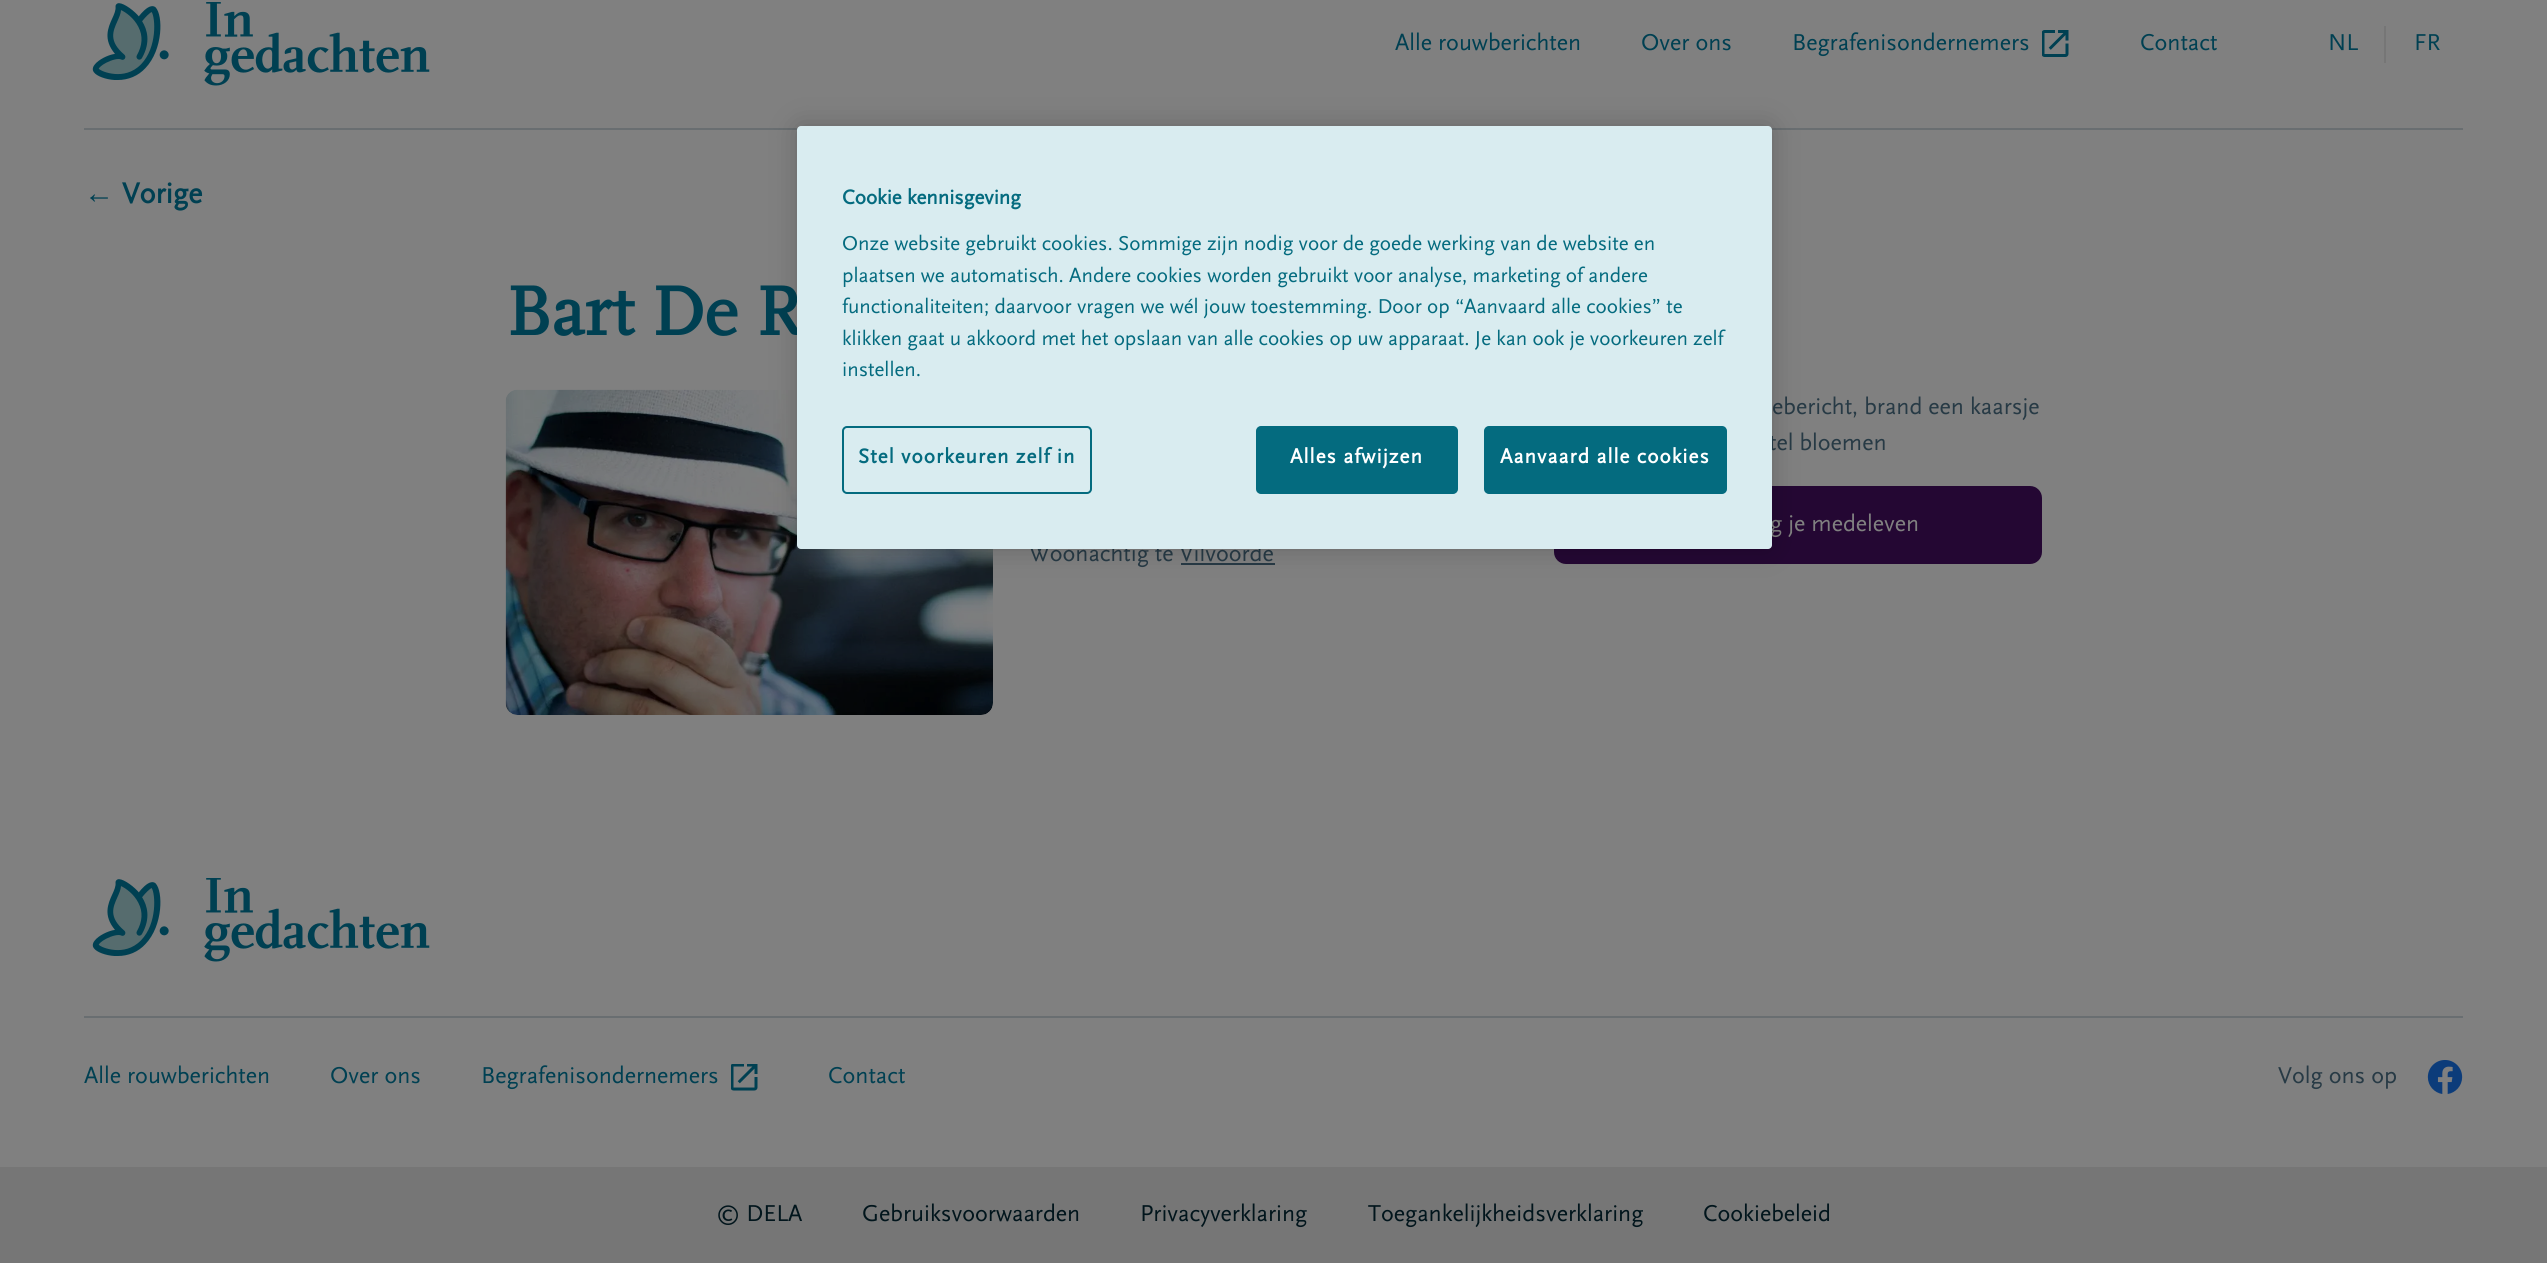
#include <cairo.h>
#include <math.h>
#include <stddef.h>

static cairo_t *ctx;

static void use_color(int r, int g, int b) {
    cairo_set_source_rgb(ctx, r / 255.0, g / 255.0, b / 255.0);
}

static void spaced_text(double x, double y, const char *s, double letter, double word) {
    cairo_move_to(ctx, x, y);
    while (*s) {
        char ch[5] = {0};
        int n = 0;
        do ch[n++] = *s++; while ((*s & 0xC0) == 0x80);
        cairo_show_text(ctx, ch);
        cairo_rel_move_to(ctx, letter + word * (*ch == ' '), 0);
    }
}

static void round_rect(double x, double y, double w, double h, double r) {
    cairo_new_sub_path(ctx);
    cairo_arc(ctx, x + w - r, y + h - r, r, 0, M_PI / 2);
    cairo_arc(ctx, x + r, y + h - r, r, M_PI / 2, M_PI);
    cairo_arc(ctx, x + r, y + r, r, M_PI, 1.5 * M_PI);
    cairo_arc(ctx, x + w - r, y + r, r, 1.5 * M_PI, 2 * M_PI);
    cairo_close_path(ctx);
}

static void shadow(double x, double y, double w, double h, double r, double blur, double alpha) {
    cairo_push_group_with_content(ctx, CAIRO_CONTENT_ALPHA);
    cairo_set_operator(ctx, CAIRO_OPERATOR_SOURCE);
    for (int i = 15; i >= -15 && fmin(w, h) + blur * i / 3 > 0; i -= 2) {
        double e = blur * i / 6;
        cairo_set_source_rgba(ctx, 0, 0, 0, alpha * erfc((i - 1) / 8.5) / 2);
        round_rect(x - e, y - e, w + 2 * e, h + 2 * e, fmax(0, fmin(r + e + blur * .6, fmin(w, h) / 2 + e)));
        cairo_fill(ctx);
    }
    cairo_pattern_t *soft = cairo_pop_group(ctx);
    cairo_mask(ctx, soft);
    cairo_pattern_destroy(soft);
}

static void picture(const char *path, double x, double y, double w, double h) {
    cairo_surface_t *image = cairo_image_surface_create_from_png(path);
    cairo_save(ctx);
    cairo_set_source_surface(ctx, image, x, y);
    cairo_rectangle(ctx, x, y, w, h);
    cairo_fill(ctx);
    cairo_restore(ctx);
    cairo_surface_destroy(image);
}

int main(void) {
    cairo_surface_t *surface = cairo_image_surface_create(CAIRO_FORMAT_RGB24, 2547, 1263);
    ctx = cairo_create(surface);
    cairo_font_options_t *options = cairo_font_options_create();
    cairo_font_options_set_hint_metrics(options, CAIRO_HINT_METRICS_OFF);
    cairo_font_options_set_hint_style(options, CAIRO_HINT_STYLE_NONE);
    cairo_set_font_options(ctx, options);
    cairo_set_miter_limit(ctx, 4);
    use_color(128, 128, 128);
    cairo_paint(ctx);
    use_color(105, 110, 113);
    cairo_rectangle(ctx, 84, 128, 2379, 2);
    cairo_fill(ctx);
    picture("img1.png", 92, 2, 338, 84);
    cairo_select_font_face(ctx, "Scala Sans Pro", CAIRO_FONT_SLANT_NORMAL, CAIRO_FONT_WEIGHT_NORMAL);
    cairo_set_font_size(ctx, 24);
    use_color(0, 64, 82);
    cairo_move_to(ctx, 1395, 50);
    cairo_show_text(ctx, "Alle rouwberichten");
    cairo_move_to(ctx, 1641, 50);
    cairo_show_text(ctx, "Over ons");
    cairo_move_to(ctx, 1792, 50);
    cairo_show_text(ctx, "Begrafenisondernemers");
    picture("img2.png", 2042, 30, 27, 27);
    cairo_move_to(ctx, 2140, 50);
    cairo_show_text(ctx, "Contact");
    cairo_move_to(ctx, 2328, 50);
    cairo_show_text(ctx, "NL");
    use_color(118, 118, 118);
    cairo_rectangle(ctx, 2384, 26, 2, 37);
    cairo_fill(ctx);
    use_color(0, 64, 82);
    cairo_move_to(ctx, 2414, 50);
    cairo_show_text(ctx, "FR");
    cairo_select_font_face(ctx, "Liberation Sans", CAIRO_FONT_SLANT_NORMAL, CAIRO_FONT_WEIGHT_BOLD);
    cairo_set_font_size(ctx, 30);
    cairo_move_to(ctx, 84, 203);
    cairo_show_text(ctx, "←");
    cairo_select_font_face(ctx, "Scala Sans Pro", CAIRO_FONT_SLANT_NORMAL, CAIRO_FONT_WEIGHT_BOLD);
    cairo_move_to(ctx, 122, 203);
    cairo_show_text(ctx, "Vorige");
    cairo_select_font_face(ctx, "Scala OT", CAIRO_FONT_SLANT_NORMAL, CAIRO_FONT_WEIGHT_BOLD);
    cairo_set_font_size(ctx, 72);
    cairo_move_to(ctx, 506, 335);
    cairo_show_text(ctx, "Bart De R");
    cairo_select_font_face(ctx, "Scala Sans Pro", CAIRO_FONT_SLANT_NORMAL, CAIRO_FONT_WEIGHT_NORMAL);
    cairo_set_font_size(ctx, 24);
    use_color(39, 58, 69);
    cairo_move_to(ctx, 1772, 414);
    cairo_show_text(ctx, "ebericht, brand een kaarsje");
    cairo_move_to(ctx, 1769, 450);
    cairo_show_text(ctx, "tel bloemen");
    use_color(36, 7, 51);
    round_rect(1554, 486, 488, 78, 12);
    cairo_fill(ctx);
    use_color(128, 128, 128);
    cairo_move_to(ctx, 1770, 531);
    cairo_show_text(ctx, "g je medeleven");
    picture("img3.png", 505, 389, 488, 326);
    use_color(39, 58, 69);
    cairo_move_to(ctx, 1029, 561);
    cairo_show_text(ctx, "Woonachtig te Vilvoorde");
    cairo_rectangle(ctx, 1181, 563, 94, 2);
    cairo_fill(ctx);
    use_color(105, 110, 113);
    cairo_rectangle(ctx, 84, 1016, 2379, 2);
    cairo_fill(ctx);
    picture("img1.png", 92, 878, 338, 84);
    use_color(0, 64, 82);
    cairo_move_to(ctx, 84, 1083);
    cairo_show_text(ctx, "Alle rouwberichten");
    cairo_move_to(ctx, 330, 1083);
    cairo_show_text(ctx, "Over ons");
    cairo_move_to(ctx, 481, 1083);
    cairo_show_text(ctx, "Begrafenisondernemers");
    picture("img4.png", 731, 1064, 27, 27);
    cairo_move_to(ctx, 828, 1083);
    cairo_show_text(ctx, "Contact");
    use_color(39, 58, 69);
    cairo_move_to(ctx, 2278, 1083);
    cairo_show_text(ctx, "Volg ons op");
    picture("img5.png", 2427, 1060, 36, 34);
    use_color(118, 118, 118);
    cairo_rectangle(ctx, 0, 1167, 2547, 96);
    cairo_fill(ctx);
    use_color(1, 21, 28);
    cairo_move_to(ctx, 716, 1221);
    cairo_show_text(ctx, "© DELA");
    cairo_move_to(ctx, 862, 1221);
    cairo_show_text(ctx, "Gebruiksvoorwaarden");
    cairo_move_to(ctx, 1140, 1221);
    cairo_show_text(ctx, "Privacyverklaring");
    cairo_move_to(ctx, 1368, 1221);
    cairo_show_text(ctx, "Toegankelijkheidsverklaring");
    cairo_move_to(ctx, 1703, 1221);
    cairo_show_text(ctx, "Cookiebeleid");
    use_color(0, 0, 0);
    shadow(797, 126, 975, 423, 4, 13.5, 0.2);
    use_color(217, 236, 240);
    round_rect(797, 126, 975, 423, 4);
    cairo_fill(ctx);
    cairo_select_font_face(ctx, "Scala Sans Pro", CAIRO_FONT_SLANT_NORMAL, CAIRO_FONT_WEIGHT_BOLD);
    cairo_set_font_size(ctx, 21);
    use_color(4, 107, 127);
    cairo_move_to(ctx, 842, 204);
    cairo_show_text(ctx, "Cookie kennisgeving");
    cairo_select_font_face(ctx, "Scala Sans Pro", CAIRO_FONT_SLANT_NORMAL, CAIRO_FONT_WEIGHT_NORMAL);
    cairo_move_to(ctx, 842, 250);
    cairo_show_text(ctx, "Onze website gebruikt cookies. Sommige zijn nodig voor de goede werking van de website en");
    cairo_move_to(ctx, 842, 282);
    cairo_show_text(ctx, "plaatsen we automatisch. Andere cookies worden gebruikt voor analyse, marketing of andere");
    cairo_move_to(ctx, 842, 313);
    cairo_show_text(ctx, "functionaliteiten; daarvoor vragen we wél jouw toestemming. Door op “Aanvaard alle cookies” te");
    cairo_move_to(ctx, 842, 345);
    cairo_show_text(ctx, "klikken gaat u akkoord met het opslaan van alle cookies op uw apparaat. Je kan ook je voorkeuren zelf");
    cairo_move_to(ctx, 842, 376);
    cairo_show_text(ctx, "instellen.");
    round_rect(843, 427, 248, 66, 4);
    cairo_stroke(ctx);
    cairo_select_font_face(ctx, "Scala Sans Pro", CAIRO_FONT_SLANT_NORMAL, CAIRO_FONT_WEIGHT_BOLD);
    spaced_text(858, 463, "Stel voorkeuren zelf in", 1.05, 0);
    round_rect(1257, 427, 200, 66, 4);
    cairo_fill_preserve(ctx);
    cairo_stroke(ctx);
    use_color(255, 255, 255);
    spaced_text(1290, 463, "Alles afwijzen", 1.05, 0);
    use_color(4, 107, 127);
    round_rect(1485, 427, 241, 66, 4);
    cairo_fill_preserve(ctx);
    cairo_stroke(ctx);
    use_color(255, 255, 255);
    spaced_text(1500, 463, "Aanvaard alle cookies", 1.05, 0);
    cairo_surface_write_to_png(surface, "result.png");
    cairo_font_options_destroy(options);
    cairo_destroy(ctx);
    cairo_surface_destroy(surface);
    return 0;
}
